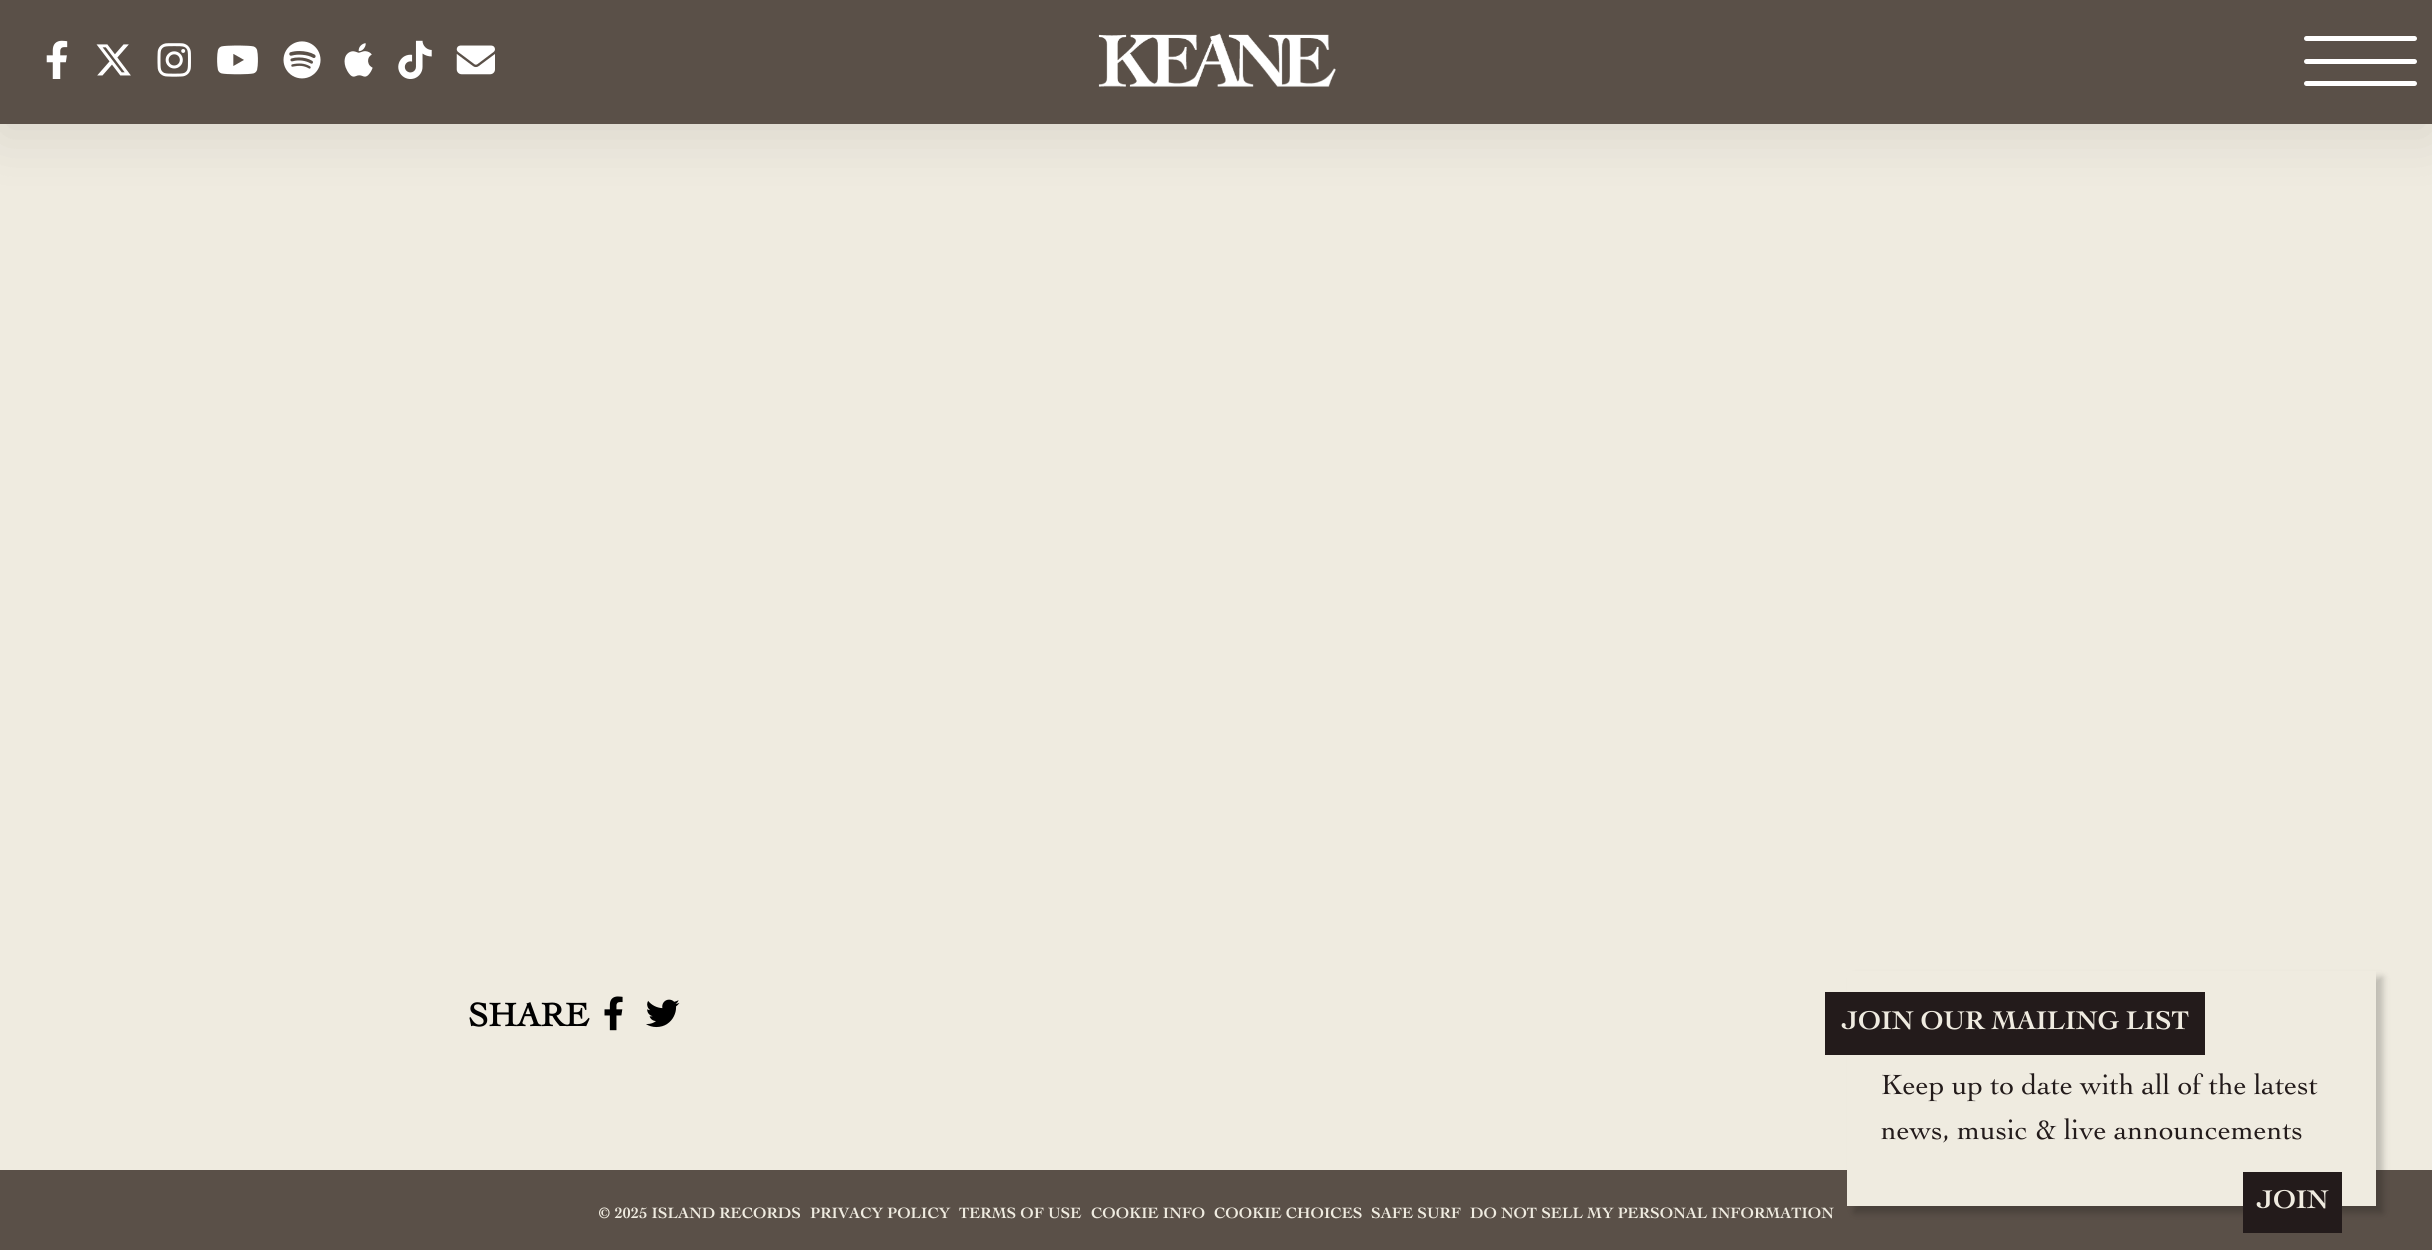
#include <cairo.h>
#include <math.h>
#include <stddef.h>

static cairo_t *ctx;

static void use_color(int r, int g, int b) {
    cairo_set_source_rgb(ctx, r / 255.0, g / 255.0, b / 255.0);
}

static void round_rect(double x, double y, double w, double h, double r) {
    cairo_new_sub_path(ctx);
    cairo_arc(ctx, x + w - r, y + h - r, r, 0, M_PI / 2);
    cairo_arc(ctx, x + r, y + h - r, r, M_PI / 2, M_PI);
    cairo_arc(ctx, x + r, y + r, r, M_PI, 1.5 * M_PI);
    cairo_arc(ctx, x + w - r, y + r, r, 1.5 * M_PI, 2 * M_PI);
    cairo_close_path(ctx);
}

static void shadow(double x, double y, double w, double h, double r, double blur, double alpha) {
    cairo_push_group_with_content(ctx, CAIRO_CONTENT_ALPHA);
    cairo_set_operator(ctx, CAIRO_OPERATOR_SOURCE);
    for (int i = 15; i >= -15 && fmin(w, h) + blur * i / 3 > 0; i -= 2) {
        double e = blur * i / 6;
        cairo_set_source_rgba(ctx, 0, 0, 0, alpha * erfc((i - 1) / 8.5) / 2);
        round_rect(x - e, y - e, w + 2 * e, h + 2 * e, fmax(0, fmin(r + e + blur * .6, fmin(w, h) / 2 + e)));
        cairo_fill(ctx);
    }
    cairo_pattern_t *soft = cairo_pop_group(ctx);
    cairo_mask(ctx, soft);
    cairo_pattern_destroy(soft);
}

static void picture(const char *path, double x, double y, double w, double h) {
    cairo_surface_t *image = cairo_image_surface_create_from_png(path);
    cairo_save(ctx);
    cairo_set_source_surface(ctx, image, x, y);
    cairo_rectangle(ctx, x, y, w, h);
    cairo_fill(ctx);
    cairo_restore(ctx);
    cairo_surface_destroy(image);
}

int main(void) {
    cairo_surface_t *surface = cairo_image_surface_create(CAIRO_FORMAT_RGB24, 2432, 1250);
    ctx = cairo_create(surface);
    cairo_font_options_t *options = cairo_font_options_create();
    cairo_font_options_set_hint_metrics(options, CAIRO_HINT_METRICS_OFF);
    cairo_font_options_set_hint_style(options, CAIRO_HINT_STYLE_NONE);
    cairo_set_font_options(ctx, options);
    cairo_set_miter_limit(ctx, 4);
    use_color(239, 235, 224);
    cairo_paint(ctx);
    use_color(0, 0, 0);
    shadow(0, 11, 2432, 124, 0, 28, 0.1);
    use_color(90, 80, 72);
    cairo_rectangle(ctx, 0, 0, 2432, 124);
    cairo_fill(ctx);
    picture("img1.png", 46, 40, 22, 39);
    picture("img2.png", 96, 44, 35, 32);
    picture("img3.png", 157, 43, 34, 34);
    picture("img4.png", 217, 45, 41, 30);
    picture("img5.png", 283, 41, 38, 38);
    picture("img6.png", 344, 43, 29, 34);
    picture("img7.png", 398, 40, 34, 39);
    picture("img8.png", 456, 45, 39, 30);
    picture("img9.png", 1098, 33, 238, 54);
    use_color(255, 255, 255);
    round_rect(2304, 36, 113, 5, 2.5);
    cairo_fill(ctx);
    round_rect(2304, 59, 113, 5, 2.5);
    cairo_fill(ctx);
    round_rect(2304, 81, 113, 5, 2.5);
    cairo_fill(ctx);
    cairo_select_font_face(ctx, "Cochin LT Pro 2", CAIRO_FONT_SLANT_NORMAL, CAIRO_FONT_WEIGHT_BOLD);
    cairo_set_font_size(ctx, 34);
    use_color(0, 0, 0);
    cairo_move_to(ctx, 468, 1026);
    cairo_show_text(ctx, "SHARE");
    picture("img10.png", 604, 996, 19, 35);
    picture("img11.png", 646, 999, 34, 29);
    use_color(90, 80, 72);
    cairo_rectangle(ctx, 0, 1170, 2432, 80);
    cairo_fill(ctx);
    cairo_select_font_face(ctx, "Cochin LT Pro", CAIRO_FONT_SLANT_NORMAL, CAIRO_FONT_WEIGHT_BOLD);
    cairo_set_font_size(ctx, 15.75);
    use_color(239, 235, 224);
    cairo_move_to(ctx, 598, 1218);
    cairo_show_text(ctx, "© 2025 ISLAND RECORDS");
    cairo_move_to(ctx, 810, 1218);
    cairo_show_text(ctx, "PRIVACY POLICY");
    cairo_move_to(ctx, 959, 1218);
    cairo_show_text(ctx, "TERMS OF USE");
    cairo_move_to(ctx, 1091, 1218);
    cairo_show_text(ctx, "COOKIE INFO");
    cairo_move_to(ctx, 1214, 1218);
    cairo_show_text(ctx, "COOKIE CHOICES");
    cairo_move_to(ctx, 1371, 1218);
    cairo_show_text(ctx, "SAFE SURF");
    cairo_move_to(ctx, 1470, 1218);
    cairo_show_text(ctx, "DO NOT SELL MY PERSONAL INFORMATION");
    use_color(0, 0, 0);
    shadow(1854, 977, 529, 236, 0, 3.5, 0.2);
    use_color(239, 235, 224);
    cairo_rectangle(ctx, 1847, 971, 529, 235);
    cairo_fill(ctx);
    use_color(35, 27, 27);
    cairo_rectangle(ctx, 1825, 992, 380, 63);
    cairo_fill(ctx);
    cairo_set_font_size(ctx, 27);
    use_color(239, 235, 224);
    cairo_move_to(ctx, 1841, 1029);
    cairo_show_text(ctx, "JOIN OUR MAILING LIST");
    cairo_select_font_face(ctx, "Cochin LT Pro", CAIRO_FONT_SLANT_NORMAL, CAIRO_FONT_WEIGHT_NORMAL);
    cairo_set_font_size(ctx, 29.25);
    use_color(35, 27, 27);
    cairo_move_to(ctx, 1881, 1094);
    cairo_show_text(ctx, "Keep up to date with all of the latest");
    cairo_move_to(ctx, 1881, 1139);
    cairo_show_text(ctx, "news, music & live announcements");
    cairo_rectangle(ctx, 2243, 1172, 99, 61);
    cairo_fill(ctx);
    cairo_select_font_face(ctx, "Cochin LT Pro", CAIRO_FONT_SLANT_NORMAL, CAIRO_FONT_WEIGHT_BOLD);
    cairo_set_font_size(ctx, 27);
    use_color(239, 235, 224);
    cairo_move_to(ctx, 2256, 1208);
    cairo_show_text(ctx, "JOIN");
    cairo_surface_write_to_png(surface, "result.png");
    cairo_font_options_destroy(options);
    cairo_destroy(ctx);
    cairo_surface_destroy(surface);
    return 0;
}
